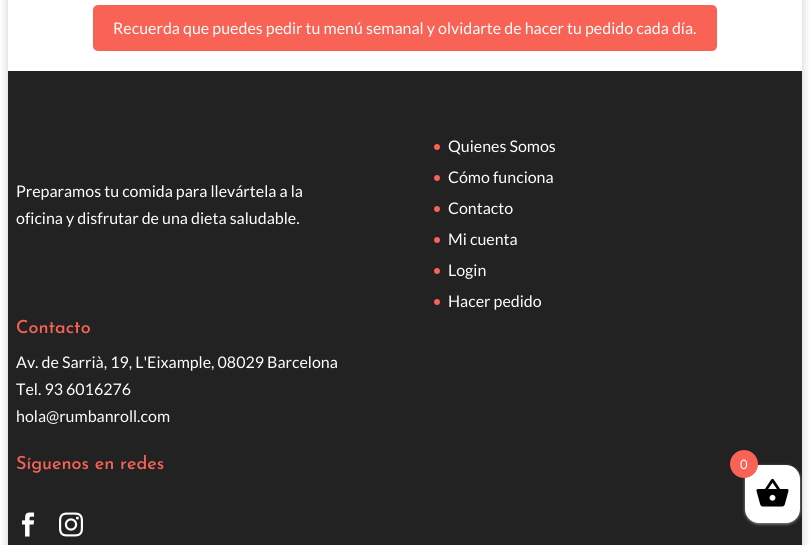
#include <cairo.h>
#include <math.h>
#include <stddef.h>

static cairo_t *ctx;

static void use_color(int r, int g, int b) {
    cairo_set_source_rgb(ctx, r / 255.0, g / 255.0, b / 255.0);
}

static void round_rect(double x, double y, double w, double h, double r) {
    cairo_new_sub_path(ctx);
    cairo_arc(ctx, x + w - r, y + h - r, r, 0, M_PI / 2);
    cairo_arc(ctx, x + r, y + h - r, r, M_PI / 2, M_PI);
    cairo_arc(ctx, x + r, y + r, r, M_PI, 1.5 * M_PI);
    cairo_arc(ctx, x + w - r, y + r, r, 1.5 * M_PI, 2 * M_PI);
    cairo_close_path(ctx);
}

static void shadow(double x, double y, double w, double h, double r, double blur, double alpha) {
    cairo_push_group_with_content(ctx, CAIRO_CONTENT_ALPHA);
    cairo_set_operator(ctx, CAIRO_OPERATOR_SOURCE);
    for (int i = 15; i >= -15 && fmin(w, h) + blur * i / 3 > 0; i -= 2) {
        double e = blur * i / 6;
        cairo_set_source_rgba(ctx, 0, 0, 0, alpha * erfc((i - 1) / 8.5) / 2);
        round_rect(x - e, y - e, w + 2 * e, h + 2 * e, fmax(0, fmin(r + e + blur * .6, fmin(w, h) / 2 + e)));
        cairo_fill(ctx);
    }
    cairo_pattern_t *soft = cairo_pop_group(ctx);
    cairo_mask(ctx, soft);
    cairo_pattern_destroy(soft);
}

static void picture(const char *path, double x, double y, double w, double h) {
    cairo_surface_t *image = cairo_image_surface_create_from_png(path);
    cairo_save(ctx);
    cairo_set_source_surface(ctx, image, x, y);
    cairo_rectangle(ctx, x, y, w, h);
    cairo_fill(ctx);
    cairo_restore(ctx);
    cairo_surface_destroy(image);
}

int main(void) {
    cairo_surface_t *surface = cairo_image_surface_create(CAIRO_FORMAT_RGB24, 810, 545);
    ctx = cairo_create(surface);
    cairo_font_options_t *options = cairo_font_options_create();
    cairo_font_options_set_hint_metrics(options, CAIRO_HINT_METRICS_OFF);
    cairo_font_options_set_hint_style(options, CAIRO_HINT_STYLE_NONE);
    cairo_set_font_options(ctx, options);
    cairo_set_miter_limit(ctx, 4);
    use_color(255, 255, 255);
    cairo_paint(ctx);
    cairo_save(ctx);
    cairo_set_fill_rule(ctx, CAIRO_FILL_RULE_EVEN_ODD);
    cairo_new_path(ctx);
    cairo_move_to(ctx, 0, 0);
    cairo_line_to(ctx, 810, 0);
    cairo_line_to(ctx, 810, 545);
    cairo_line_to(ctx, 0, 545);
    cairo_close_path(ctx);
    cairo_move_to(ctx, 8, -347);
    cairo_line_to(ctx, 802, -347);
    cairo_line_to(ctx, 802, 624);
    cairo_line_to(ctx, 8, 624);
    cairo_close_path(ctx);
    cairo_clip(ctx);
    use_color(0, 0, 0);
    shadow(8, -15, 794, 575, 0, 5, 0.2);
    cairo_restore(ctx);
    use_color(248, 99, 86);
    round_rect(93, 5, 624, 46, 5);
    cairo_fill(ctx);
    cairo_select_font_face(ctx, "Lato", CAIRO_FONT_SLANT_NORMAL, CAIRO_FONT_WEIGHT_NORMAL);
    cairo_set_font_size(ctx, 16);
    use_color(255, 255, 255);
    cairo_move_to(ctx, 113, 34);
    cairo_show_text(ctx, "Recuerda que puedes pedir tu menú semanal y olvidarte de hacer tu pedido cada día.");
    use_color(34, 34, 34);
    cairo_rectangle(ctx, 8, 71, 794, 474);
    cairo_fill(ctx);
    use_color(255, 255, 255);
    cairo_move_to(ctx, 16, 197);
    cairo_show_text(ctx, "Preparamos tu comida para llevártela a la");
    cairo_move_to(ctx, 16, 224);
    cairo_show_text(ctx, "oficina y disfrutar de una dieta saludable.");
    use_color(248, 99, 86);
    cairo_new_path(ctx);
    cairo_arc(ctx, 437, 147, 3, 0, 2 * M_PI);
    cairo_fill(ctx);
    use_color(255, 255, 255);
    cairo_move_to(ctx, 448, 152);
    cairo_show_text(ctx, "Quienes Somos");
    use_color(248, 99, 86);
    cairo_new_path(ctx);
    cairo_arc(ctx, 437, 178, 3, 0, 2 * M_PI);
    cairo_fill(ctx);
    use_color(255, 255, 255);
    cairo_move_to(ctx, 448, 183);
    cairo_show_text(ctx, "Cómo funciona");
    use_color(248, 99, 86);
    cairo_new_path(ctx);
    cairo_arc(ctx, 437, 209, 3, 0, 2 * M_PI);
    cairo_fill(ctx);
    use_color(255, 255, 255);
    cairo_move_to(ctx, 448, 214);
    cairo_show_text(ctx, "Contacto");
    use_color(248, 99, 86);
    cairo_new_path(ctx);
    cairo_arc(ctx, 437, 240, 3, 0, 2 * M_PI);
    cairo_fill(ctx);
    use_color(255, 255, 255);
    cairo_move_to(ctx, 448, 245);
    cairo_show_text(ctx, "Mi cuenta");
    use_color(248, 99, 86);
    cairo_new_path(ctx);
    cairo_arc(ctx, 437, 271, 3, 0, 2 * M_PI);
    cairo_fill(ctx);
    use_color(255, 255, 255);
    cairo_move_to(ctx, 448, 276);
    cairo_show_text(ctx, "Login");
    use_color(248, 99, 86);
    cairo_new_path(ctx);
    cairo_arc(ctx, 437, 302, 3, 0, 2 * M_PI);
    cairo_fill(ctx);
    use_color(255, 255, 255);
    cairo_move_to(ctx, 448, 307);
    cairo_show_text(ctx, "Hacer pedido");
    cairo_select_font_face(ctx, "Josefin Sans Medium", CAIRO_FONT_SLANT_NORMAL, CAIRO_FONT_WEIGHT_NORMAL);
    cairo_set_font_size(ctx, 18);
    use_color(248, 99, 86);
    cairo_move_to(ctx, 16, 333);
    cairo_show_text(ctx, "Contacto");
    cairo_select_font_face(ctx, "Lato", CAIRO_FONT_SLANT_NORMAL, CAIRO_FONT_WEIGHT_NORMAL);
    cairo_set_font_size(ctx, 16);
    use_color(255, 255, 255);
    cairo_move_to(ctx, 16, 368);
    cairo_show_text(ctx, "Av. de Sarrià, 19, L'Eixample, 08029 Barcelona");
    cairo_move_to(ctx, 16, 395);
    cairo_show_text(ctx, "Tel. 93 6016276");
    cairo_move_to(ctx, 16, 422);
    cairo_show_text(ctx, "hola@rumbanroll.com");
    cairo_select_font_face(ctx, "Josefin Sans Medium", CAIRO_FONT_SLANT_NORMAL, CAIRO_FONT_WEIGHT_NORMAL);
    cairo_set_font_size(ctx, 18);
    use_color(248, 99, 86);
    cairo_move_to(ctx, 16, 469);
    cairo_show_text(ctx, "Síguenos en redes");
    picture("img1.png", 22, 512, 13, 25);
    picture("img2.png", 59, 512, 24, 25);
    use_color(153, 153, 153);
    shadow(745, 466, 55, 58, 14, 1.5, 1);
    use_color(255, 255, 255);
    round_rect(745, 465, 55, 58, 14);
    cairo_fill(ctx);
    use_color(248, 99, 86);
    cairo_arc(ctx, 744, 464, 14, 0, 2 * M_PI);
    cairo_fill(ctx);
    cairo_select_font_face(ctx, "Lato", CAIRO_FONT_SLANT_NORMAL, CAIRO_FONT_WEIGHT_NORMAL);
    cairo_set_font_size(ctx, 13);
    use_color(255, 255, 255);
    cairo_move_to(ctx, 740, 469);
    cairo_show_text(ctx, "0");
    picture("img3.png", 756, 478, 33, 29);
    cairo_surface_write_to_png(surface, "result.png");
    cairo_font_options_destroy(options);
    cairo_destroy(ctx);
    cairo_surface_destroy(surface);
    return 0;
}
